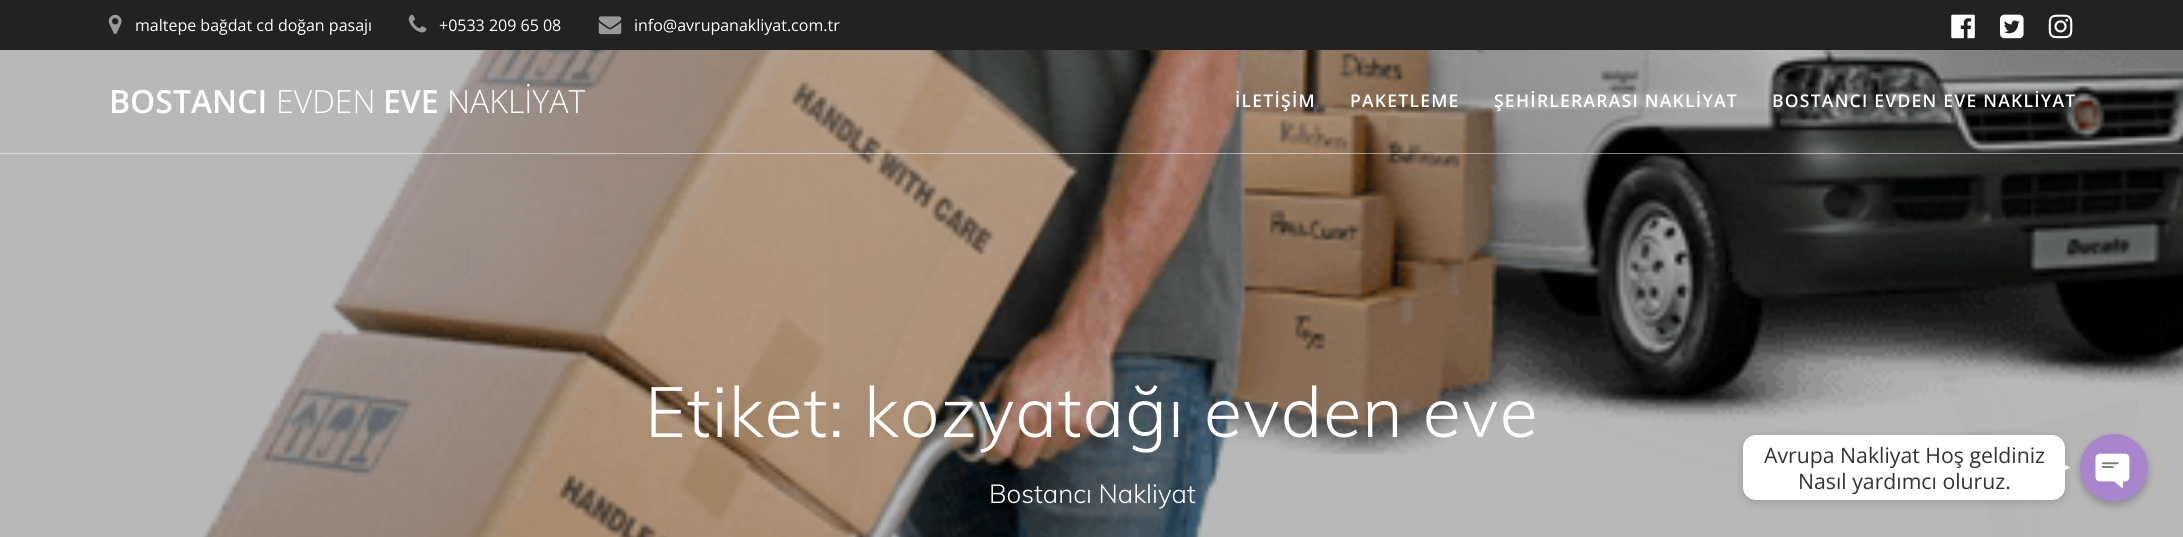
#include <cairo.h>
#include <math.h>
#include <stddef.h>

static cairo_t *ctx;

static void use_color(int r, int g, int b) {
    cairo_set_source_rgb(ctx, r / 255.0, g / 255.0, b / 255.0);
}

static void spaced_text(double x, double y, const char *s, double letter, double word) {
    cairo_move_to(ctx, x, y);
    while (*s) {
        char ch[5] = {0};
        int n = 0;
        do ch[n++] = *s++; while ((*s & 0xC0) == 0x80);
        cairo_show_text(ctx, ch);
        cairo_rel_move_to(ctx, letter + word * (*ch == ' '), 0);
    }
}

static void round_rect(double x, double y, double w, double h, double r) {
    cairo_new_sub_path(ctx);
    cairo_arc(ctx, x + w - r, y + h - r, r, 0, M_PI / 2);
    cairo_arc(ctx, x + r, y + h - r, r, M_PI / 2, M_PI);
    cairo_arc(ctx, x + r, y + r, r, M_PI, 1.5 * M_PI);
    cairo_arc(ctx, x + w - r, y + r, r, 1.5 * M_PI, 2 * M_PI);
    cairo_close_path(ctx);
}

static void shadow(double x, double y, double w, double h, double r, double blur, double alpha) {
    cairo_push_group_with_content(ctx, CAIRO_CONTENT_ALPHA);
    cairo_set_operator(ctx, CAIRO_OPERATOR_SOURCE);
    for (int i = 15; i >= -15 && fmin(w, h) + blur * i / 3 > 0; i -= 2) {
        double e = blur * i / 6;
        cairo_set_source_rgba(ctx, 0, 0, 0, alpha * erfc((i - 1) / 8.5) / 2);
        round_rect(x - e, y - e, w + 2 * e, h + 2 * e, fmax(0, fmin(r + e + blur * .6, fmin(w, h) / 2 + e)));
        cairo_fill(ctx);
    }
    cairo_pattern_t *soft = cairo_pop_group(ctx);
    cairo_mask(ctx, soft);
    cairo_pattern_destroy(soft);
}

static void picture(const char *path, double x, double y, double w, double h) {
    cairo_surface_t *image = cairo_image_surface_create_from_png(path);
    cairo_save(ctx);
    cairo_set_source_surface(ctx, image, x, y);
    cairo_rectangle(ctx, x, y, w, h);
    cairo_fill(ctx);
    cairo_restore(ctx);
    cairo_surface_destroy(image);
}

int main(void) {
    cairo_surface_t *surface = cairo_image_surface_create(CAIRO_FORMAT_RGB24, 2183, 537);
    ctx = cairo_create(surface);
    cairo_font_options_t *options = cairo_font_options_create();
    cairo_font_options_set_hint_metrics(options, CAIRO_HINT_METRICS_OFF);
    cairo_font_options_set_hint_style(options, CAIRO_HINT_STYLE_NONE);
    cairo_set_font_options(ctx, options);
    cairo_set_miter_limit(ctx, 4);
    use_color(184, 184, 184);
    cairo_paint(ctx);
    use_color(34, 34, 34);
    cairo_rectangle(ctx, 0, 0, 2183, 50);
    cairo_fill(ctx);
    picture("img1.png", 108, 14, 14, 20);
    cairo_select_font_face(ctx, "Open Sans", CAIRO_FONT_SLANT_NORMAL, CAIRO_FONT_WEIGHT_NORMAL);
    cairo_set_font_size(ctx, 16);
    use_color(255, 255, 255);
    cairo_move_to(ctx, 135, 31);
    cairo_show_text(ctx, "maltepe bağdat cd doğan pasajı");
    picture("img2.png", 408, 14, 19, 19);
    cairo_move_to(ctx, 439, 31);
    cairo_show_text(ctx, "+0533 209 65 08");
    picture("img3.png", 598, 16, 24, 19);
    cairo_move_to(ctx, 634, 31);
    cairo_show_text(ctx, "info@avrupanakliyat.com.tr");
    picture("img4.png", 1951, 14, 24, 25);
    picture("img5.png", 2000, 14, 24, 25);
    picture("img6.png", 2048, 14, 25, 25);
    picture("img7.png", 202, 50, 1981, 487);
    cairo_set_source_rgba(ctx, 1, 1, 1, 0.5);
    cairo_rectangle(ctx, 0, 153, 2183, 1);
    cairo_fill(ctx);
    cairo_select_font_face(ctx, "Open Sans SemiBold", CAIRO_FONT_SLANT_NORMAL, CAIRO_FONT_WEIGHT_NORMAL);
    cairo_set_font_size(ctx, 32);
    use_color(255, 255, 255);
    cairo_move_to(ctx, 109, 113);
    cairo_show_text(ctx, "BOSTANCI");
    cairo_select_font_face(ctx, "Open Sans Light", CAIRO_FONT_SLANT_NORMAL, CAIRO_FONT_WEIGHT_NORMAL);
    cairo_move_to(ctx, 276, 113);
    cairo_show_text(ctx, "EVDEN");
    cairo_select_font_face(ctx, "Open Sans SemiBold", CAIRO_FONT_SLANT_NORMAL, CAIRO_FONT_WEIGHT_NORMAL);
    cairo_move_to(ctx, 383, 113);
    cairo_show_text(ctx, "EVE");
    cairo_select_font_face(ctx, "Open Sans Light", CAIRO_FONT_SLANT_NORMAL, CAIRO_FONT_WEIGHT_NORMAL);
    cairo_move_to(ctx, 447, 113);
    cairo_show_text(ctx, "NAKLİYAT");
    cairo_select_font_face(ctx, "Open Sans SemiBold", CAIRO_FONT_SLANT_NORMAL, CAIRO_FONT_WEIGHT_NORMAL);
    cairo_set_font_size(ctx, 17.5);
    spaced_text(1235, 107, "İLETİŞİM", 1.25, 0);
    spaced_text(1350, 107, "PAKETLEME", 1.25, 0);
    spaced_text(1494, 107, "ŞEHİRLERARASI NAKLİYAT", 1.25, 0);
    spaced_text(1772, 107, "BOSTANCI EVDEN EVE NAKLİYAT", 1.25, 0);
    picture("img8.png", 829, 184, 1309, 353);
    cairo_select_font_face(ctx, "Muli Light", CAIRO_FONT_SLANT_NORMAL, CAIRO_FONT_WEIGHT_NORMAL);
    cairo_set_font_size(ctx, 70);
    spaced_text(645, 437, "Etiket: kozyatağı evden eve", 1.1, 0);
    cairo_set_font_size(ctx, 26);
    cairo_move_to(ctx, 989, 503);
    cairo_show_text(ctx, "Bostancı Nakliyat");
    use_color(0, 0, 0);
    shadow(2080, 438, 68, 67, 33.5, 4, 0.25);
    picture("img9.png", 2080, 434, 68, 67);
    shadow(1743, 438, 322, 65, 13, 5, 0.15);
    use_color(255, 255, 255);
    round_rect(1743, 435, 322, 65, 13);
    cairo_fill(ctx);
    cairo_select_font_face(ctx, "Open Sans", CAIRO_FONT_SLANT_NORMAL, CAIRO_FONT_WEIGHT_NORMAL);
    cairo_set_font_size(ctx, 21.25);
    use_color(51, 51, 51);
    cairo_move_to(ctx, 1764, 463);
    cairo_show_text(ctx, "Avrupa Nakliyat Hoş geldiniz");
    cairo_move_to(ctx, 1798, 489);
    cairo_show_text(ctx, "Nasıl yardımcı oluruz.");
    use_color(255, 255, 255);
    cairo_new_path(ctx);
    cairo_move_to(ctx, 2057.5, 474);
    cairo_line_to(ctx, 2057.5, 461);
    cairo_line_to(ctx, 2070, 467.5);
    cairo_close_path(ctx);
    cairo_fill(ctx);
    cairo_surface_write_to_png(surface, "result.png");
    cairo_font_options_destroy(options);
    cairo_destroy(ctx);
    cairo_surface_destroy(surface);
    return 0;
}
